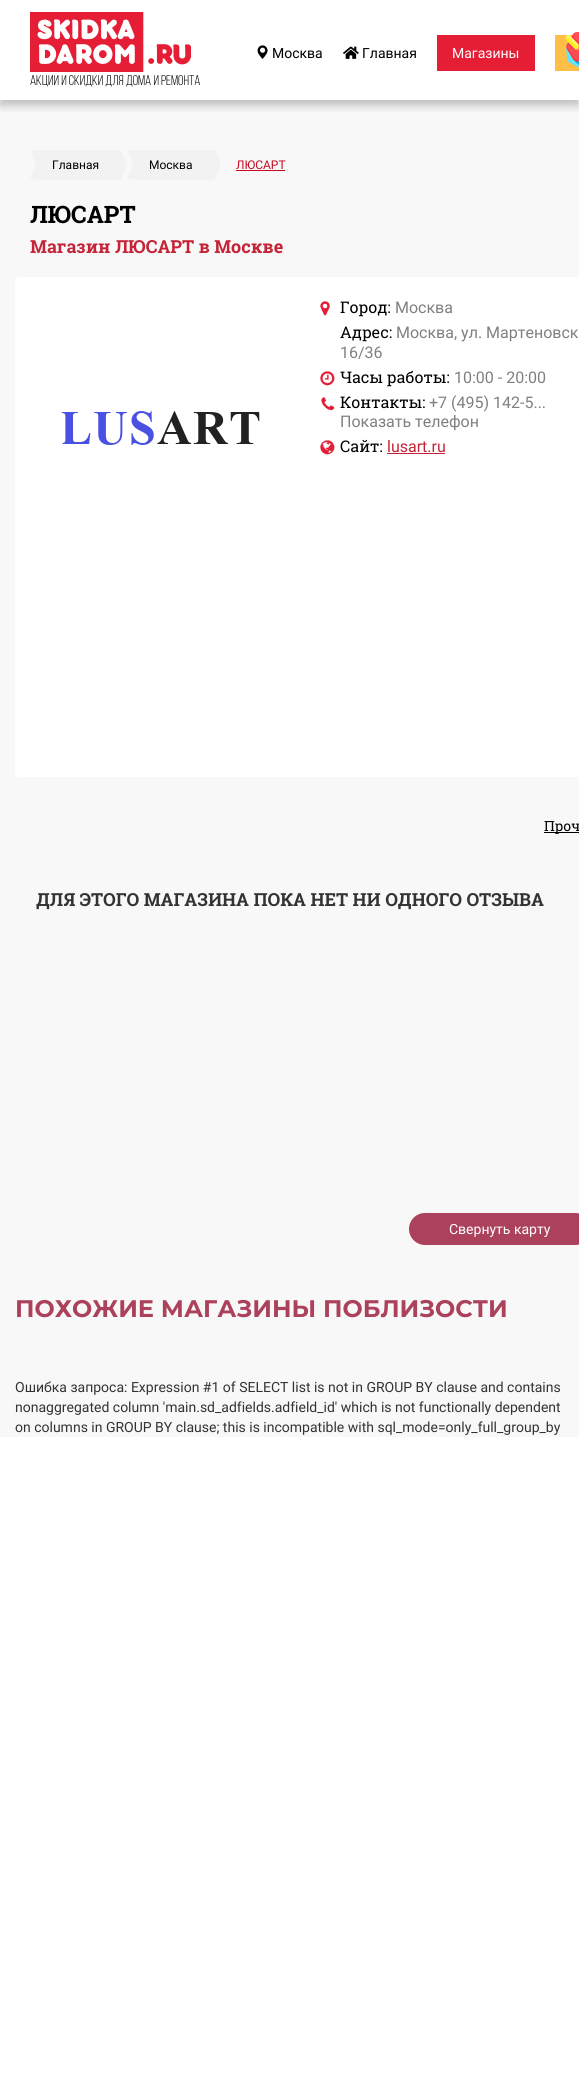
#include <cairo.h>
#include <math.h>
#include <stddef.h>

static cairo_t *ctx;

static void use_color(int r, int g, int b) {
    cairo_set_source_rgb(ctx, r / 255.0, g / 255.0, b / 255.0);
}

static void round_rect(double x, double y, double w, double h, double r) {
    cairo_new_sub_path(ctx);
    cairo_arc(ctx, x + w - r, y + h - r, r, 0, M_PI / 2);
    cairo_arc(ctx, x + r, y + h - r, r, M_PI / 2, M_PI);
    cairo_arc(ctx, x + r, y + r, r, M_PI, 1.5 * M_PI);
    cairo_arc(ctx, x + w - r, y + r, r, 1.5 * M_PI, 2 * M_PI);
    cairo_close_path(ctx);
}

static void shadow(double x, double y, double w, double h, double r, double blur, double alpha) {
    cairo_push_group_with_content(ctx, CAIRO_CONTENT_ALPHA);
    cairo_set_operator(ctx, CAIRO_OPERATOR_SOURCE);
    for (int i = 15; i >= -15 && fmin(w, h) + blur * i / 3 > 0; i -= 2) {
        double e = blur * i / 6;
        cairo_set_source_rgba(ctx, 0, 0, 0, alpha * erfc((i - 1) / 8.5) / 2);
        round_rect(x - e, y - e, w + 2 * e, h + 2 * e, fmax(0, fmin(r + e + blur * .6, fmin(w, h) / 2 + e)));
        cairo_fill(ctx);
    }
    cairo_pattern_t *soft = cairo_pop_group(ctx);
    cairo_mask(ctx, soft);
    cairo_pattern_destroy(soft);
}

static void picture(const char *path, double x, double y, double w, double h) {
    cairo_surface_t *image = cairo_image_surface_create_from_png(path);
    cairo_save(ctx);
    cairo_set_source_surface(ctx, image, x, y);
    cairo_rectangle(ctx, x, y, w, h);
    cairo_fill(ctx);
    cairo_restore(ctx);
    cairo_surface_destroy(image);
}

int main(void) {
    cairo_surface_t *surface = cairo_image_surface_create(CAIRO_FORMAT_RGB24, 579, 2091);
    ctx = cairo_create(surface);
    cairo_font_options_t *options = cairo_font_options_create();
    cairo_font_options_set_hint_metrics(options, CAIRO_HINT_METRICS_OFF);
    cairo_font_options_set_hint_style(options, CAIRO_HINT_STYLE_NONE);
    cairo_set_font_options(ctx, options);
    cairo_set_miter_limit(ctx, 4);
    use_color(255, 255, 255);
    cairo_paint(ctx);
    use_color(248, 248, 248);
    cairo_rectangle(ctx, 0, 100, 579, 1337);
    cairo_fill(ctx);
    cairo_save(ctx);
    cairo_rectangle(ctx, 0, 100, 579, 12);
    cairo_clip(ctx);
    use_color(0, 0, 0);
    shadow(0, 5, 579, 100, 0, 5, 0.25);
    cairo_restore(ctx);
    picture("img1.png", 257, 45, 11, 14);
    cairo_select_font_face(ctx, "Roboto", CAIRO_FONT_SLANT_NORMAL, CAIRO_FONT_WEIGHT_NORMAL);
    cairo_set_font_size(ctx, 14);
    use_color(0, 0, 0);
    cairo_move_to(ctx, 272, 58);
    cairo_show_text(ctx, "Москва");
    picture("img2.png", 343, 46, 16, 13);
    cairo_move_to(ctx, 362, 58);
    cairo_show_text(ctx, "Главная");
    use_color(229, 30, 54);
    cairo_rectangle(ctx, 437, 35, 98, 36);
    cairo_fill(ctx);
    use_color(255, 255, 255);
    cairo_move_to(ctx, 452, 58);
    cairo_show_text(ctx, "Магазины");
    use_color(255, 190, 70);
    cairo_rectangle(ctx, 555, 35, 24, 36);
    cairo_fill(ctx);
    picture("img3.png", 565, 32, 14, 36);
    picture("img4.png", 30, 12, 161, 60);
    cairo_select_font_face(ctx, "Bebas Neue", CAIRO_FONT_SLANT_NORMAL, CAIRO_FONT_WEIGHT_NORMAL);
    use_color(0, 0, 0);
    cairo_move_to(ctx, 30, 85);
    cairo_show_text(ctx, "Акции и Скидки для дома и ремонта");
    use_color(242, 242, 242);
    cairo_rectangle(ctx, 37, 150, 82, 30);
    cairo_fill(ctx);
    picture("img5.png", 30, 150, 7, 29);
    cairo_select_font_face(ctx, "Roboto", CAIRO_FONT_SLANT_NORMAL, CAIRO_FONT_WEIGHT_NORMAL);
    cairo_set_font_size(ctx, 12);
    use_color(0, 0, 0);
    cairo_move_to(ctx, 52, 169);
    cairo_show_text(ctx, "Главная");
    picture("img6.png", 119, 150, 8, 29);
    use_color(242, 242, 242);
    cairo_rectangle(ctx, 134, 150, 79, 30);
    cairo_fill(ctx);
    picture("img5.png", 127, 150, 7, 29);
    use_color(0, 0, 0);
    cairo_move_to(ctx, 149, 169);
    cairo_show_text(ctx, "Москва");
    picture("img6.png", 213, 150, 8, 29);
    use_color(200, 10, 33);
    cairo_move_to(ctx, 236, 169);
    cairo_show_text(ctx, "ЛЮСАРТ");
    cairo_rectangle(ctx, 236, 170, 49, 1);
    cairo_fill(ctx);
    cairo_select_font_face(ctx, "Roboto Slab", CAIRO_FONT_SLANT_NORMAL, CAIRO_FONT_WEIGHT_BOLD);
    cairo_set_font_size(ctx, 24);
    use_color(0, 0, 0);
    cairo_move_to(ctx, 30, 223);
    cairo_show_text(ctx, "ЛЮСАРТ");
    cairo_set_font_size(ctx, 18);
    use_color(197, 35, 55);
    cairo_move_to(ctx, 30, 253);
    cairo_show_text(ctx, "Магазин ЛЮСАРТ в Москве");
    use_color(255, 255, 255);
    round_rect(15, 277, 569, 500, 5);
    cairo_fill(ctx);
    picture("img7.png", 61, 411, 199, 34);
    picture("img8.png", 320, 301, 10, 15);
    cairo_select_font_face(ctx, "Roboto Slab", CAIRO_FONT_SLANT_NORMAL, CAIRO_FONT_WEIGHT_NORMAL);
    cairo_set_font_size(ctx, 16);
    use_color(0, 0, 0);
    cairo_move_to(ctx, 340, 313);
    cairo_show_text(ctx, "Город:");
    cairo_select_font_face(ctx, "Roboto", CAIRO_FONT_SLANT_NORMAL, CAIRO_FONT_WEIGHT_NORMAL);
    use_color(128, 128, 128);
    cairo_move_to(ctx, 395, 313);
    cairo_show_text(ctx, "Москва");
    cairo_select_font_face(ctx, "Roboto Slab", CAIRO_FONT_SLANT_NORMAL, CAIRO_FONT_WEIGHT_NORMAL);
    use_color(0, 0, 0);
    cairo_move_to(ctx, 340, 338);
    cairo_show_text(ctx, "Адрес:");
    cairo_select_font_face(ctx, "Roboto", CAIRO_FONT_SLANT_NORMAL, CAIRO_FONT_WEIGHT_NORMAL);
    use_color(128, 128, 128);
    cairo_move_to(ctx, 396, 338);
    cairo_show_text(ctx, "Москва, ул. Мартеновск");
    cairo_move_to(ctx, 340, 358);
    cairo_show_text(ctx, "16/36");
    picture("img9.png", 320, 371, 15, 15);
    cairo_select_font_face(ctx, "Roboto Slab", CAIRO_FONT_SLANT_NORMAL, CAIRO_FONT_WEIGHT_NORMAL);
    use_color(0, 0, 0);
    cairo_move_to(ctx, 340, 383);
    cairo_show_text(ctx, "Часы работы:");
    cairo_select_font_face(ctx, "Roboto", CAIRO_FONT_SLANT_NORMAL, CAIRO_FONT_WEIGHT_NORMAL);
    use_color(128, 128, 128);
    cairo_move_to(ctx, 454, 383);
    cairo_show_text(ctx, "10:00 - 20:00");
    picture("img10.png", 321, 397, 14, 14);
    cairo_select_font_face(ctx, "Roboto Slab", CAIRO_FONT_SLANT_NORMAL, CAIRO_FONT_WEIGHT_NORMAL);
    use_color(0, 0, 0);
    cairo_move_to(ctx, 340, 408);
    cairo_show_text(ctx, "Контакты:");
    cairo_select_font_face(ctx, "Roboto", CAIRO_FONT_SLANT_NORMAL, CAIRO_FONT_WEIGHT_NORMAL);
    use_color(128, 128, 128);
    cairo_move_to(ctx, 429, 408);
    cairo_show_text(ctx, "+7 (495) 142-5...");
    cairo_move_to(ctx, 340, 427);
    cairo_show_text(ctx, "Показать телефон");
    picture("img11.png", 320, 440, 15, 15);
    cairo_select_font_face(ctx, "Roboto Slab", CAIRO_FONT_SLANT_NORMAL, CAIRO_FONT_WEIGHT_NORMAL);
    use_color(0, 0, 0);
    cairo_move_to(ctx, 340, 452);
    cairo_show_text(ctx, "Сайт:");
    cairo_select_font_face(ctx, "Roboto", CAIRO_FONT_SLANT_NORMAL, CAIRO_FONT_WEIGHT_NORMAL);
    use_color(197, 35, 55);
    cairo_move_to(ctx, 387, 452);
    cairo_show_text(ctx, "lusart.ru");
    use_color(196, 35, 56);
    cairo_rectangle(ctx, 387, 453, 58, 1);
    cairo_fill(ctx);
    use_color(0, 0, 0);
    cairo_rectangle(ctx, 544, 832, 35, 1);
    cairo_fill(ctx);
    cairo_select_font_face(ctx, "Roboto Slab", CAIRO_FONT_SLANT_NORMAL, CAIRO_FONT_WEIGHT_NORMAL);
    cairo_set_font_size(ctx, 14);
    cairo_move_to(ctx, 544, 831);
    cairo_show_text(ctx, "Проч");
    cairo_select_font_face(ctx, "Roboto Slab", CAIRO_FONT_SLANT_NORMAL, CAIRO_FONT_WEIGHT_BOLD);
    cairo_set_font_size(ctx, 18);
    use_color(51, 51, 51);
    cairo_move_to(ctx, 36, 906);
    cairo_show_text(ctx, "ДЛЯ ЭТОГО МАГАЗИНА ПОКА НЕТ НИ ОДНОГО ОТЗЫВА");
    use_color(172, 65, 92);
    round_rect(409, 1213, 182, 32, 16);
    cairo_fill(ctx);
    cairo_select_font_face(ctx, "Roboto", CAIRO_FONT_SLANT_NORMAL, CAIRO_FONT_WEIGHT_NORMAL);
    cairo_set_font_size(ctx, 14);
    use_color(255, 255, 255);
    cairo_move_to(ctx, 449, 1234);
    cairo_show_text(ctx, "Свернуть карту");
    cairo_select_font_face(ctx, "Montserrat", CAIRO_FONT_SLANT_NORMAL, CAIRO_FONT_WEIGHT_BOLD);
    cairo_set_font_size(ctx, 24);
    use_color(172, 65, 92);
    cairo_move_to(ctx, 15, 1317);
    cairo_show_text(ctx, "ПОХОЖИЕ МАГАЗИНЫ ПОБЛИЗОСТИ");
    cairo_select_font_face(ctx, "Roboto", CAIRO_FONT_SLANT_NORMAL, CAIRO_FONT_WEIGHT_NORMAL);
    cairo_set_font_size(ctx, 14);
    use_color(51, 51, 51);
    cairo_move_to(ctx, 15, 1392);
    cairo_show_text(ctx, "Ошибка запроса: Expression #1 of SELECT list is not in GROUP BY clause and contains");
    cairo_move_to(ctx, 15, 1412);
    cairo_show_text(ctx, "nonaggregated column 'main.sd_adfields.adfield_id' which is not functionally dependent");
    cairo_move_to(ctx, 15, 1432);
    cairo_show_text(ctx, "on columns in GROUP BY clause; this is incompatible with sql_mode=only_full_group_by");
    cairo_surface_write_to_png(surface, "result.png");
    cairo_font_options_destroy(options);
    cairo_destroy(ctx);
    cairo_surface_destroy(surface);
    return 0;
}
